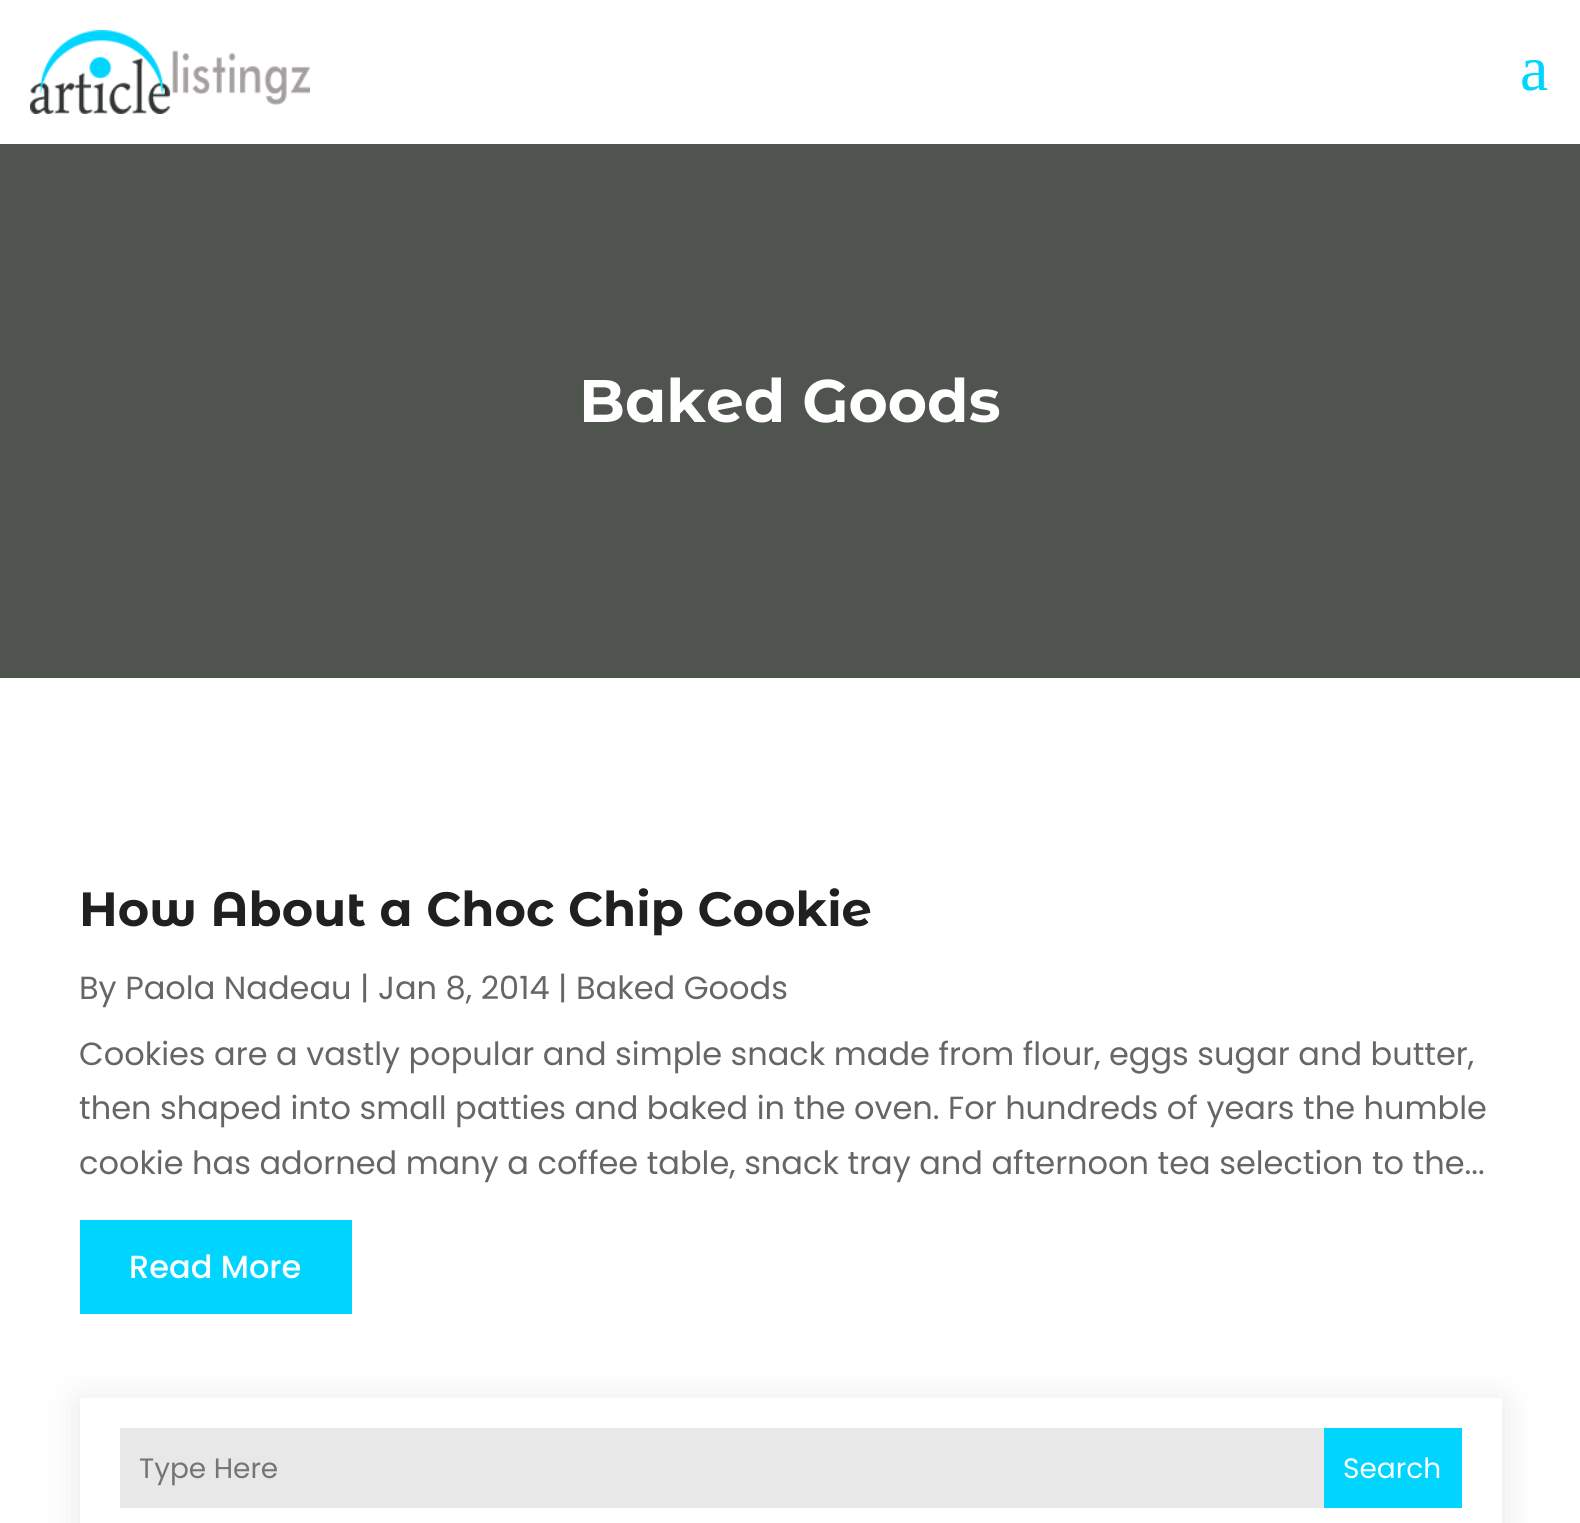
#include <cairo.h>
#include <math.h>
#include <stddef.h>

static cairo_t *ctx;

static void use_color(int r, int g, int b) {
    cairo_set_source_rgb(ctx, r / 255.0, g / 255.0, b / 255.0);
}

static void round_rect(double x, double y, double w, double h, double r) {
    cairo_new_sub_path(ctx);
    cairo_arc(ctx, x + w - r, y + h - r, r, 0, M_PI / 2);
    cairo_arc(ctx, x + r, y + h - r, r, M_PI / 2, M_PI);
    cairo_arc(ctx, x + r, y + r, r, M_PI, 1.5 * M_PI);
    cairo_arc(ctx, x + w - r, y + r, r, 1.5 * M_PI, 2 * M_PI);
    cairo_close_path(ctx);
}

static void shadow(double x, double y, double w, double h, double r, double blur, double alpha) {
    cairo_push_group_with_content(ctx, CAIRO_CONTENT_ALPHA);
    cairo_set_operator(ctx, CAIRO_OPERATOR_SOURCE);
    for (int i = 15; i >= -15 && fmin(w, h) + blur * i / 3 > 0; i -= 2) {
        double e = blur * i / 6;
        cairo_set_source_rgba(ctx, 0, 0, 0, alpha * erfc((i - 1) / 8.5) / 2);
        round_rect(x - e, y - e, w + 2 * e, h + 2 * e, fmax(0, fmin(r + e + blur * .6, fmin(w, h) / 2 + e)));
        cairo_fill(ctx);
    }
    cairo_pattern_t *soft = cairo_pop_group(ctx);
    cairo_mask(ctx, soft);
    cairo_pattern_destroy(soft);
}

static void picture(const char *path, double x, double y, double w, double h) {
    cairo_surface_t *image = cairo_image_surface_create_from_png(path);
    cairo_save(ctx);
    cairo_set_source_surface(ctx, image, x, y);
    cairo_rectangle(ctx, x, y, w, h);
    cairo_fill(ctx);
    cairo_restore(ctx);
    cairo_surface_destroy(image);
}

int main(void) {
    cairo_surface_t *surface = cairo_image_surface_create(CAIRO_FORMAT_RGB24, 1580, 1523);
    ctx = cairo_create(surface);
    cairo_font_options_t *options = cairo_font_options_create();
    cairo_font_options_set_hint_metrics(options, CAIRO_HINT_METRICS_OFF);
    cairo_font_options_set_hint_style(options, CAIRO_HINT_STYLE_NONE);
    cairo_set_font_options(ctx, options);
    cairo_set_miter_limit(ctx, 4);
    use_color(255, 255, 255);
    cairo_paint(ctx);
    picture("img1.png", 30, 30, 280, 84);
    cairo_select_font_face(ctx, "Liberation Serif", CAIRO_FONT_SLANT_NORMAL, CAIRO_FONT_WEIGHT_NORMAL);
    cairo_set_font_size(ctx, 64);
    use_color(0, 213, 255);
    cairo_move_to(ctx, 1520, 90);
    cairo_show_text(ctx, "a");
    use_color(80, 84, 78);
    cairo_rectangle(ctx, 0, 144, 1580, 534);
    cairo_fill(ctx);
    cairo_select_font_face(ctx, "Montserrat Alternates", CAIRO_FONT_SLANT_NORMAL, CAIRO_FONT_WEIGHT_BOLD);
    cairo_set_font_size(ctx, 60);
    use_color(255, 255, 255);
    cairo_move_to(ctx, 579, 422);
    cairo_show_text(ctx, "Baked Goods");
    cairo_set_font_size(ctx, 48);
    use_color(32, 32, 32);
    cairo_move_to(ctx, 79, 926);
    cairo_show_text(ctx, "How About a Choc Chip Cookie");
    cairo_select_font_face(ctx, "Poppins", CAIRO_FONT_SLANT_NORMAL, CAIRO_FONT_WEIGHT_NORMAL);
    cairo_set_font_size(ctx, 32);
    use_color(102, 102, 102);
    cairo_move_to(ctx, 79, 999);
    cairo_show_text(ctx, "By Paola Nadeau | Jan 8, 2014 | Baked Goods");
    cairo_move_to(ctx, 79, 1065);
    cairo_show_text(ctx, "Cookies are a vastly popular and simple snack made from flour, eggs sugar and butter,");
    cairo_move_to(ctx, 79, 1119);
    cairo_show_text(ctx, "then shaped into small patties and baked in the oven. For hundreds of years the humble");
    cairo_move_to(ctx, 79, 1174);
    cairo_show_text(ctx, "cookie has adorned many a coffee table, snack tray and afternoon tea selection to the...");
    use_color(0, 213, 255);
    cairo_rectangle(ctx, 80, 1220, 272, 94);
    cairo_fill(ctx);
    cairo_select_font_face(ctx, "Poppins Medium", CAIRO_FONT_SLANT_NORMAL, CAIRO_FONT_WEIGHT_NORMAL);
    use_color(255, 255, 255);
    cairo_move_to(ctx, 129, 1278);
    cairo_show_text(ctx, "Read More");
    cairo_save(ctx);
    cairo_set_fill_rule(ctx, CAIRO_FILL_RULE_EVEN_ODD);
    cairo_new_path(ctx);
    cairo_move_to(ctx, 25, 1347);
    cairo_line_to(ctx, 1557, 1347);
    cairo_line_to(ctx, 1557, 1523);
    cairo_line_to(ctx, 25, 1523);
    cairo_close_path(ctx);
    cairo_move_to(ctx, 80, 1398);
    cairo_line_to(ctx, 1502, 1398);
    cairo_line_to(ctx, 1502, 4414);
    cairo_line_to(ctx, 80, 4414);
    cairo_close_path(ctx);
    cairo_clip(ctx);
    use_color(0, 0, 0);
    shadow(80, 1402, 1422, 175, 0, 18, 0.1);
    cairo_restore(ctx);
    use_color(232, 232, 232);
    cairo_rectangle(ctx, 120, 1428, 1204, 80);
    cairo_fill(ctx);
    cairo_select_font_face(ctx, "Poppins", CAIRO_FONT_SLANT_NORMAL, CAIRO_FONT_WEIGHT_NORMAL);
    cairo_set_font_size(ctx, 28);
    use_color(117, 117, 117);
    cairo_move_to(ctx, 139, 1478);
    cairo_show_text(ctx, "Type Here");
    use_color(0, 213, 255);
    cairo_rectangle(ctx, 1324, 1428, 138, 80);
    cairo_fill(ctx);
    use_color(255, 255, 255);
    cairo_move_to(ctx, 1343, 1478);
    cairo_show_text(ctx, "Search");
    cairo_surface_write_to_png(surface, "result.png");
    cairo_font_options_destroy(options);
    cairo_destroy(ctx);
    cairo_surface_destroy(surface);
    return 0;
}
